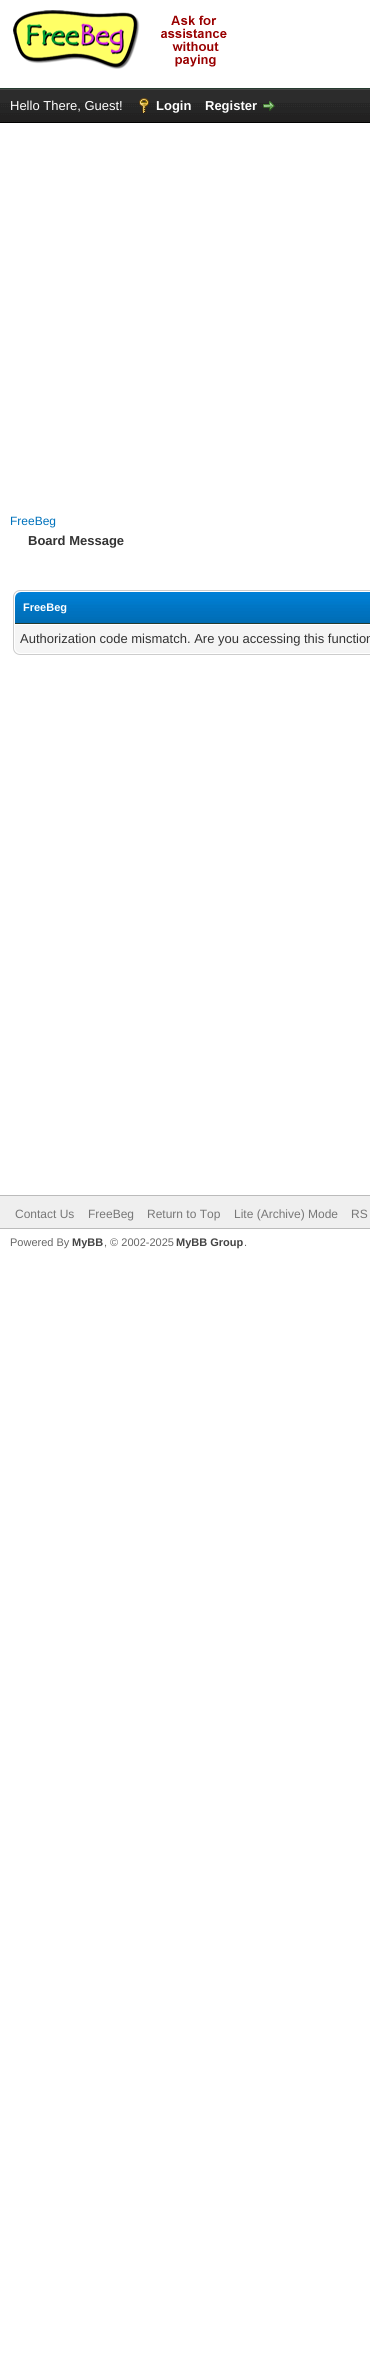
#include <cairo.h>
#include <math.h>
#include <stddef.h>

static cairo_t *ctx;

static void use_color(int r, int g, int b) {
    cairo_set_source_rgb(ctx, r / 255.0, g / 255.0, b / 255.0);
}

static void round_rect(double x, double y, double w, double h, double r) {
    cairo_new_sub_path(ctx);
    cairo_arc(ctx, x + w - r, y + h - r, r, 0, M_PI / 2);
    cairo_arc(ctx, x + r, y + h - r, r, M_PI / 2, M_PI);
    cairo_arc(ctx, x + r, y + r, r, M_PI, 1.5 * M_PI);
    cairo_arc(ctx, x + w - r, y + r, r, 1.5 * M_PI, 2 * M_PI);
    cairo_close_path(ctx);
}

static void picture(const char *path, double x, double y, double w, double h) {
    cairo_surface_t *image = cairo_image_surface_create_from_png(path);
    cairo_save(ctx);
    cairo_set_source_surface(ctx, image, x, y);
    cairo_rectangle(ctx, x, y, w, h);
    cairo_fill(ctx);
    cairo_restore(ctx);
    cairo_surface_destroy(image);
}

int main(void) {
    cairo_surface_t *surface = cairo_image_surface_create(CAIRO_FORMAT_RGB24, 370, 2358);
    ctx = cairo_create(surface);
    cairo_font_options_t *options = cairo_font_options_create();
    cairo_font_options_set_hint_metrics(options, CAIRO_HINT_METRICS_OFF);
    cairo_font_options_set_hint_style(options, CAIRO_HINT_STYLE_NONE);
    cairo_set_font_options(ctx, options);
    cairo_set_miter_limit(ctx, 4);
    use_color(255, 255, 255);
    cairo_paint(ctx);
    use_color(38, 60, 48);
    cairo_rectangle(ctx, 0, 88, 370, 1);
    cairo_fill(ctx);
    picture("img1.png", 13, 10, 214, 59);
    picture("img2.png", 0, 90, 370, 32);
    use_color(68, 68, 68);
    cairo_rectangle(ctx, 0, 89, 370, 1);
    cairo_fill(ctx);
    use_color(0, 0, 0);
    cairo_rectangle(ctx, 0, 122, 370, 1);
    cairo_fill(ctx);
    cairo_select_font_face(ctx, "Liberation Sans", CAIRO_FONT_SLANT_NORMAL, CAIRO_FONT_WEIGHT_NORMAL);
    cairo_set_font_size(ctx, 13);
    use_color(255, 255, 255);
    cairo_move_to(ctx, 10, 110);
    cairo_show_text(ctx, "Hello There, Guest!");
    picture("img3.png", 139, 98, 10, 15);
    cairo_select_font_face(ctx, "Liberation Sans", CAIRO_FONT_SLANT_NORMAL, CAIRO_FONT_WEIGHT_BOLD);
    cairo_move_to(ctx, 156, 110);
    cairo_show_text(ctx, "Login");
    cairo_move_to(ctx, 205, 110);
    cairo_show_text(ctx, "Register");
    picture("img4.png", 263, 101, 12, 10);
    cairo_select_font_face(ctx, "Liberation Sans", CAIRO_FONT_SLANT_NORMAL, CAIRO_FONT_WEIGHT_NORMAL);
    cairo_set_font_size(ctx, 12);
    use_color(0, 114, 188);
    cairo_move_to(ctx, 10, 525);
    cairo_show_text(ctx, "FreeBeg");
    cairo_select_font_face(ctx, "Liberation Sans", CAIRO_FONT_SLANT_NORMAL, CAIRO_FONT_WEIGHT_BOLD);
    cairo_set_font_size(ctx, 13);
    use_color(51, 51, 51);
    cairo_move_to(ctx, 28, 545);
    cairo_show_text(ctx, "Board Message");
    round_rect(13.5, 590.5, 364, 64, 6.5);
    use_color(204, 204, 204);
    cairo_set_line_width(ctx, 1);
    cairo_stroke(ctx);
    picture("img5.png", 15, 592, 355, 31);
    use_color(38, 60, 48);
    cairo_rectangle(ctx, 15, 623, 355, 1);
    cairo_fill(ctx);
    cairo_set_font_size(ctx, 11);
    use_color(255, 255, 255);
    cairo_move_to(ctx, 23, 611);
    cairo_show_text(ctx, "FreeBeg");
    use_color(245, 245, 245);
    cairo_new_path(ctx);
    cairo_move_to(ctx, 15, 624);
    cairo_line_to(ctx, 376, 624);
    cairo_line_to(ctx, 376, 647);
    cairo_curve_to(ctx, 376, 650.5, 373.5, 653, 370, 653);
    cairo_line_to(ctx, 21, 653);
    cairo_curve_to(ctx, 17.5, 653, 15, 650.5, 15, 647);
    cairo_close_path(ctx);
    cairo_fill(ctx);
    use_color(255, 255, 255);
    cairo_rectangle(ctx, 15, 624, 355, 1);
    cairo_fill(ctx);
    cairo_select_font_face(ctx, "Liberation Sans", CAIRO_FONT_SLANT_NORMAL, CAIRO_FONT_WEIGHT_NORMAL);
    cairo_set_font_size(ctx, 13);
    use_color(51, 51, 51);
    cairo_move_to(ctx, 20, 643);
    cairo_show_text(ctx, "Authorization code mismatch. Are you accessing this function");
    use_color(239, 239, 239);
    cairo_rectangle(ctx, 0, 1196, 370, 32);
    cairo_fill(ctx);
    use_color(187, 187, 187);
    cairo_rectangle(ctx, 0, 1195, 370, 1);
    cairo_fill(ctx);
    cairo_rectangle(ctx, 0, 1228, 370, 1);
    cairo_fill(ctx);
    cairo_set_font_size(ctx, 12);
    use_color(119, 119, 119);
    cairo_move_to(ctx, 15, 1218);
    cairo_show_text(ctx, "Contact Us");
    cairo_move_to(ctx, 88, 1218);
    cairo_show_text(ctx, "FreeBeg");
    cairo_move_to(ctx, 147, 1218);
    cairo_show_text(ctx, "Return to Top");
    cairo_move_to(ctx, 234, 1218);
    cairo_show_text(ctx, "Lite (Archive) Mode");
    cairo_move_to(ctx, 351, 1218);
    cairo_show_text(ctx, "RS");
    cairo_set_font_size(ctx, 11);
    use_color(102, 102, 102);
    cairo_move_to(ctx, 10, 1246);
    cairo_show_text(ctx, "Powered By");
    cairo_select_font_face(ctx, "Liberation Sans", CAIRO_FONT_SLANT_NORMAL, CAIRO_FONT_WEIGHT_BOLD);
    use_color(68, 68, 68);
    cairo_move_to(ctx, 72, 1246);
    cairo_show_text(ctx, "MyBB");
    cairo_select_font_face(ctx, "Liberation Sans", CAIRO_FONT_SLANT_NORMAL, CAIRO_FONT_WEIGHT_NORMAL);
    use_color(102, 102, 102);
    cairo_move_to(ctx, 104, 1246);
    cairo_show_text(ctx, ", © 2002-2025");
    cairo_select_font_face(ctx, "Liberation Sans", CAIRO_FONT_SLANT_NORMAL, CAIRO_FONT_WEIGHT_BOLD);
    use_color(68, 68, 68);
    cairo_move_to(ctx, 176, 1246);
    cairo_show_text(ctx, "MyBB Group");
    cairo_select_font_face(ctx, "Liberation Sans", CAIRO_FONT_SLANT_NORMAL, CAIRO_FONT_WEIGHT_NORMAL);
    use_color(102, 102, 102);
    cairo_move_to(ctx, 244, 1246);
    cairo_show_text(ctx, ".");
    cairo_surface_write_to_png(surface, "result.png");
    cairo_font_options_destroy(options);
    cairo_destroy(ctx);
    cairo_surface_destroy(surface);
    return 0;
}
